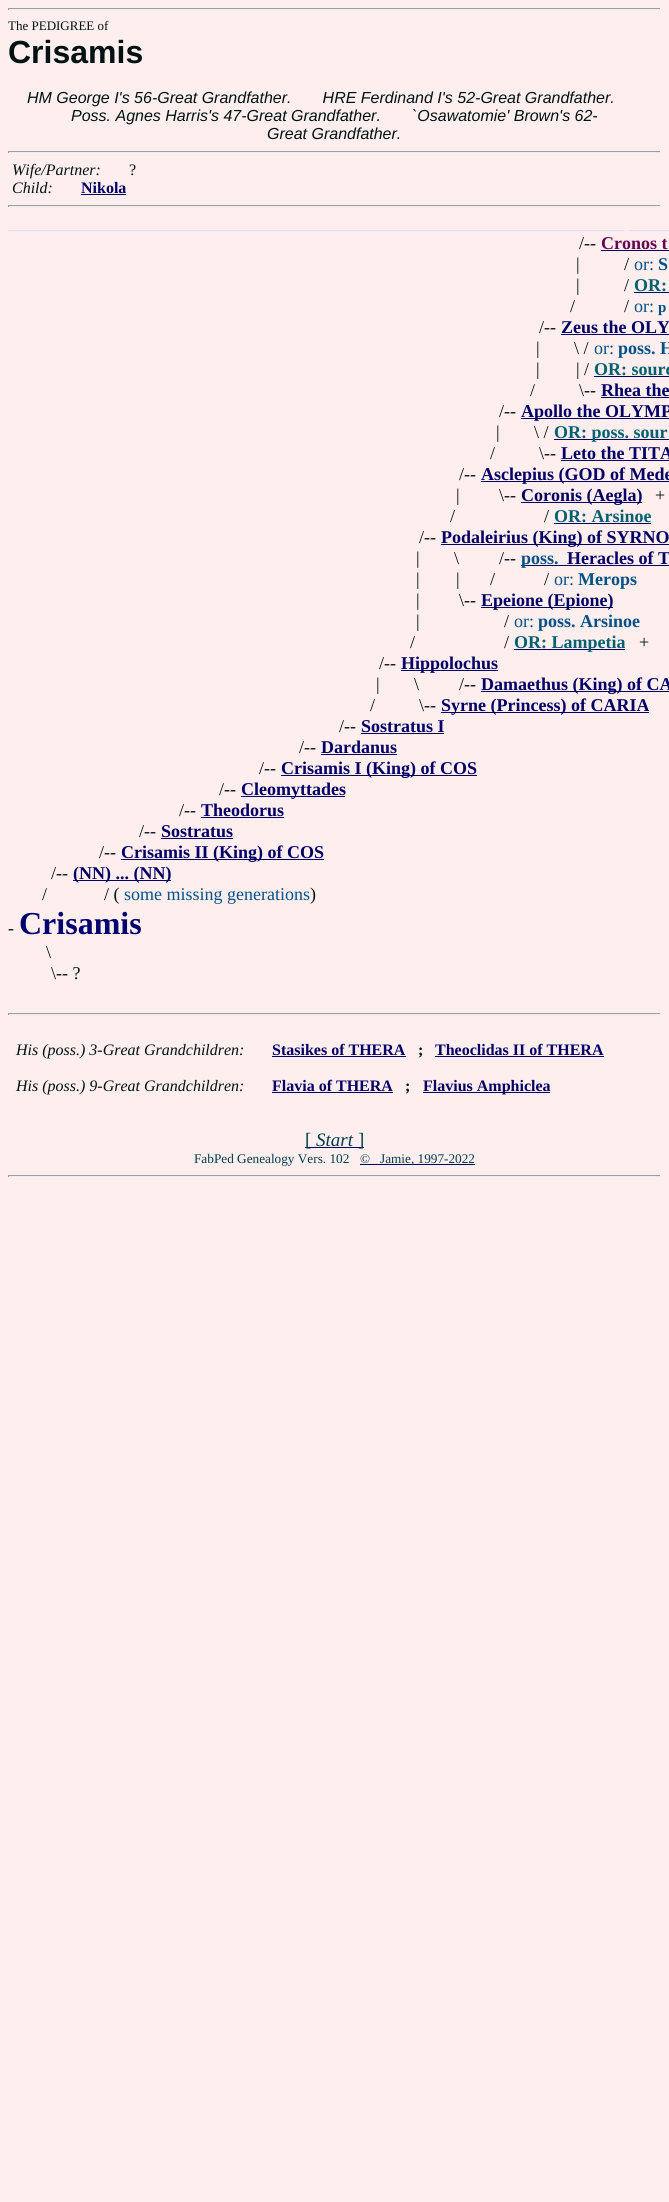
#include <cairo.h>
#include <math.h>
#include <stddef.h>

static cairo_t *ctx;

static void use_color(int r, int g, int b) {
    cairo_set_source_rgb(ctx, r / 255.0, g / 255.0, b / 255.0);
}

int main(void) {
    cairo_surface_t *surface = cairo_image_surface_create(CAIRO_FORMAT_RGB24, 669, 2202);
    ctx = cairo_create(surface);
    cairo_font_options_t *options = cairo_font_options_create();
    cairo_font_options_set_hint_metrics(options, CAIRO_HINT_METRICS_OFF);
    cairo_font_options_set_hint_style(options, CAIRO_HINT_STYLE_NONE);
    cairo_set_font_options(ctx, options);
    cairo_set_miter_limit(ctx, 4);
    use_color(255, 238, 238);
    cairo_paint(ctx);
    use_color(159, 159, 159);
    cairo_rectangle(ctx, 8, 8, 653, 1);
    cairo_fill(ctx);
    use_color(238, 238, 238);
    cairo_rectangle(ctx, 660, 8, 1, 2);
    cairo_fill(ctx);
    cairo_rectangle(ctx, 8, 9, 653, 1);
    cairo_fill(ctx);
    use_color(159, 159, 159);
    cairo_rectangle(ctx, 8, 8, 1, 2);
    cairo_fill(ctx);
    cairo_select_font_face(ctx, "Liberation Serif", CAIRO_FONT_SLANT_NORMAL, CAIRO_FONT_WEIGHT_NORMAL);
    cairo_set_font_size(ctx, 13);
    use_color(0, 17, 17);
    cairo_move_to(ctx, 8, 30);
    cairo_show_text(ctx, "The PEDIGREE of");
    cairo_select_font_face(ctx, "Liberation Sans", CAIRO_FONT_SLANT_NORMAL, CAIRO_FONT_WEIGHT_BOLD);
    cairo_set_font_size(ctx, 32);
    cairo_move_to(ctx, 8, 63);
    cairo_show_text(ctx, "Crisamis");
    cairo_select_font_face(ctx, "Liberation Sans", CAIRO_FONT_SLANT_ITALIC, CAIRO_FONT_WEIGHT_NORMAL);
    cairo_set_font_size(ctx, 16);
    cairo_move_to(ctx, 27, 103);
    cairo_show_text(ctx, "HM George I's 56-Great Grandfather.       HRE Ferdinand I's 52-Great Grandfather.");
    cairo_move_to(ctx, 71, 121);
    cairo_show_text(ctx, "Poss. Agnes Harris's 47-Great Grandfather.       `Osawatomie' Brown's 62-");
    cairo_move_to(ctx, 267, 139);
    cairo_show_text(ctx, "Great Grandfather.");
    use_color(159, 159, 159);
    cairo_rectangle(ctx, 8, 151, 653, 1);
    cairo_fill(ctx);
    use_color(238, 238, 238);
    cairo_rectangle(ctx, 660, 151, 1, 2);
    cairo_fill(ctx);
    cairo_rectangle(ctx, 8, 152, 653, 1);
    cairo_fill(ctx);
    use_color(159, 159, 159);
    cairo_rectangle(ctx, 8, 151, 1, 2);
    cairo_fill(ctx);
    cairo_select_font_face(ctx, "Liberation Serif", CAIRO_FONT_SLANT_ITALIC, CAIRO_FONT_WEIGHT_NORMAL);
    use_color(0, 17, 17);
    cairo_move_to(ctx, 12, 175);
    cairo_show_text(ctx, "Wife/Partner:");
    cairo_select_font_face(ctx, "Liberation Serif", CAIRO_FONT_SLANT_NORMAL, CAIRO_FONT_WEIGHT_NORMAL);
    cairo_move_to(ctx, 129, 175);
    cairo_show_text(ctx, "?");
    cairo_select_font_face(ctx, "Liberation Serif", CAIRO_FONT_SLANT_ITALIC, CAIRO_FONT_WEIGHT_NORMAL);
    cairo_move_to(ctx, 12, 193);
    cairo_show_text(ctx, "Child:");
    cairo_select_font_face(ctx, "Liberation Serif", CAIRO_FONT_SLANT_NORMAL, CAIRO_FONT_WEIGHT_BOLD);
    use_color(0, 0, 102);
    cairo_move_to(ctx, 81, 193);
    cairo_show_text(ctx, "Nikola");
    cairo_rectangle(ctx, 81, 194, 45, 1);
    cairo_fill(ctx);
    use_color(159, 159, 159);
    cairo_rectangle(ctx, 8, 205, 653, 1);
    cairo_fill(ctx);
    use_color(238, 238, 238);
    cairo_rectangle(ctx, 660, 205, 1, 2);
    cairo_fill(ctx);
    cairo_rectangle(ctx, 8, 206, 653, 1);
    cairo_fill(ctx);
    use_color(159, 159, 159);
    cairo_rectangle(ctx, 8, 205, 1, 2);
    cairo_fill(ctx);
    use_color(221, 221, 255);
    cairo_move_to(ctx, 8, 229);
    cairo_show_text(ctx, "_____________________________________________________________________________");
    cairo_move_to(ctx, 629, 229);
    cairo_show_text(ctx, "_____");
    cairo_select_font_face(ctx, "Liberation Serif", CAIRO_FONT_SLANT_NORMAL, CAIRO_FONT_WEIGHT_NORMAL);
    cairo_set_font_size(ctx, 18);
    use_color(0, 17, 17);
    cairo_move_to(ctx, 579, 249);
    cairo_show_text(ctx, "/--");
    cairo_select_font_face(ctx, "Liberation Serif", CAIRO_FONT_SLANT_NORMAL, CAIRO_FONT_WEIGHT_BOLD);
    use_color(104, 0, 86);
    cairo_move_to(ctx, 601, 249);
    cairo_show_text(ctx, "Cronos t");
    use_color(0, 0, 102);
    cairo_rectangle(ctx, 601, 250, 68, 1);
    cairo_fill(ctx);
    cairo_select_font_face(ctx, "Liberation Serif", CAIRO_FONT_SLANT_NORMAL, CAIRO_FONT_WEIGHT_NORMAL);
    use_color(0, 17, 17);
    cairo_move_to(ctx, 576, 270);
    cairo_show_text(ctx, "|");
    cairo_move_to(ctx, 624, 270);
    cairo_show_text(ctx, "/");
    use_color(0, 80, 136);
    cairo_move_to(ctx, 634, 270);
    cairo_show_text(ctx, "or:");
    cairo_select_font_face(ctx, "Liberation Serif", CAIRO_FONT_SLANT_NORMAL, CAIRO_FONT_WEIGHT_BOLD);
    cairo_move_to(ctx, 658, 270);
    cairo_show_text(ctx, "S");
    cairo_select_font_face(ctx, "Liberation Serif", CAIRO_FONT_SLANT_NORMAL, CAIRO_FONT_WEIGHT_NORMAL);
    use_color(0, 17, 17);
    cairo_move_to(ctx, 576, 291);
    cairo_show_text(ctx, "|");
    cairo_move_to(ctx, 624, 291);
    cairo_show_text(ctx, "/");
    cairo_select_font_face(ctx, "Liberation Serif", CAIRO_FONT_SLANT_NORMAL, CAIRO_FONT_WEIGHT_BOLD);
    use_color(0, 96, 112);
    cairo_move_to(ctx, 634, 291);
    cairo_show_text(ctx, "OR:");
    use_color(0, 0, 102);
    cairo_rectangle(ctx, 634, 292, 35, 1);
    cairo_fill(ctx);
    cairo_select_font_face(ctx, "Liberation Serif", CAIRO_FONT_SLANT_NORMAL, CAIRO_FONT_WEIGHT_NORMAL);
    use_color(0, 17, 17);
    cairo_move_to(ctx, 570, 312);
    cairo_show_text(ctx, "/");
    cairo_move_to(ctx, 624, 312);
    cairo_show_text(ctx, "/");
    use_color(0, 80, 136);
    cairo_move_to(ctx, 634, 312);
    cairo_show_text(ctx, "or:");
    cairo_select_font_face(ctx, "Liberation Serif", CAIRO_FONT_SLANT_NORMAL, CAIRO_FONT_WEIGHT_BOLD);
    cairo_set_font_size(ctx, 15);
    cairo_move_to(ctx, 658, 312);
    cairo_show_text(ctx, "p");
    cairo_select_font_face(ctx, "Liberation Serif", CAIRO_FONT_SLANT_NORMAL, CAIRO_FONT_WEIGHT_NORMAL);
    cairo_set_font_size(ctx, 18);
    use_color(0, 17, 17);
    cairo_move_to(ctx, 539, 333);
    cairo_show_text(ctx, "/--");
    cairo_select_font_face(ctx, "Liberation Serif", CAIRO_FONT_SLANT_NORMAL, CAIRO_FONT_WEIGHT_BOLD);
    use_color(0, 0, 102);
    cairo_move_to(ctx, 561, 333);
    cairo_show_text(ctx, "Zeus the OLY");
    cairo_rectangle(ctx, 561, 334, 108, 1);
    cairo_fill(ctx);
    cairo_select_font_face(ctx, "Liberation Serif", CAIRO_FONT_SLANT_NORMAL, CAIRO_FONT_WEIGHT_NORMAL);
    use_color(0, 17, 17);
    cairo_move_to(ctx, 536, 354);
    cairo_show_text(ctx, "|");
    cairo_move_to(ctx, 574, 354);
    cairo_show_text(ctx, "\\ /");
    use_color(0, 80, 136);
    cairo_move_to(ctx, 594, 354);
    cairo_show_text(ctx, "or:");
    cairo_select_font_face(ctx, "Liberation Serif", CAIRO_FONT_SLANT_NORMAL, CAIRO_FONT_WEIGHT_BOLD);
    cairo_move_to(ctx, 618, 354);
    cairo_show_text(ctx, "poss. H");
    cairo_select_font_face(ctx, "Liberation Serif", CAIRO_FONT_SLANT_NORMAL, CAIRO_FONT_WEIGHT_NORMAL);
    use_color(0, 17, 17);
    cairo_move_to(ctx, 536, 375);
    cairo_show_text(ctx, "|");
    cairo_move_to(ctx, 576, 375);
    cairo_show_text(ctx, "| /");
    cairo_select_font_face(ctx, "Liberation Serif", CAIRO_FONT_SLANT_NORMAL, CAIRO_FONT_WEIGHT_BOLD);
    use_color(0, 96, 112);
    cairo_move_to(ctx, 594, 375);
    cairo_show_text(ctx, "OR: sourc");
    use_color(0, 0, 102);
    cairo_rectangle(ctx, 594, 376, 75, 1);
    cairo_fill(ctx);
    cairo_select_font_face(ctx, "Liberation Serif", CAIRO_FONT_SLANT_NORMAL, CAIRO_FONT_WEIGHT_NORMAL);
    use_color(0, 17, 17);
    cairo_move_to(ctx, 530, 396);
    cairo_show_text(ctx, "/");
    cairo_move_to(ctx, 579, 396);
    cairo_show_text(ctx, "\\--");
    cairo_select_font_face(ctx, "Liberation Serif", CAIRO_FONT_SLANT_NORMAL, CAIRO_FONT_WEIGHT_BOLD);
    use_color(0, 0, 102);
    cairo_move_to(ctx, 601, 396);
    cairo_show_text(ctx, "Rhea the");
    cairo_rectangle(ctx, 601, 397, 68, 1);
    cairo_fill(ctx);
    cairo_select_font_face(ctx, "Liberation Serif", CAIRO_FONT_SLANT_NORMAL, CAIRO_FONT_WEIGHT_NORMAL);
    use_color(0, 17, 17);
    cairo_move_to(ctx, 499, 417);
    cairo_show_text(ctx, "/--");
    use_color(0, 0, 102);
    cairo_rectangle(ctx, 521, 418, 148, 1);
    cairo_fill(ctx);
    cairo_select_font_face(ctx, "Liberation Serif", CAIRO_FONT_SLANT_NORMAL, CAIRO_FONT_WEIGHT_BOLD);
    cairo_move_to(ctx, 521, 417);
    cairo_show_text(ctx, "Apollo the OLYMP");
    cairo_select_font_face(ctx, "Liberation Serif", CAIRO_FONT_SLANT_NORMAL, CAIRO_FONT_WEIGHT_NORMAL);
    use_color(0, 17, 17);
    cairo_move_to(ctx, 496, 438);
    cairo_show_text(ctx, "|");
    cairo_move_to(ctx, 534, 438);
    cairo_show_text(ctx, "\\ /");
    use_color(0, 0, 102);
    cairo_rectangle(ctx, 554, 439, 115, 1);
    cairo_fill(ctx);
    cairo_select_font_face(ctx, "Liberation Serif", CAIRO_FONT_SLANT_NORMAL, CAIRO_FONT_WEIGHT_BOLD);
    use_color(0, 96, 112);
    cairo_move_to(ctx, 554, 438);
    cairo_show_text(ctx, "OR: poss. sour");
    cairo_select_font_face(ctx, "Liberation Serif", CAIRO_FONT_SLANT_NORMAL, CAIRO_FONT_WEIGHT_NORMAL);
    use_color(0, 17, 17);
    cairo_move_to(ctx, 490, 459);
    cairo_show_text(ctx, "/");
    cairo_move_to(ctx, 539, 459);
    cairo_show_text(ctx, "\\--");
    cairo_select_font_face(ctx, "Liberation Serif", CAIRO_FONT_SLANT_NORMAL, CAIRO_FONT_WEIGHT_BOLD);
    use_color(0, 0, 102);
    cairo_move_to(ctx, 561, 459);
    cairo_show_text(ctx, "Leto the TITA");
    cairo_rectangle(ctx, 561, 460, 108, 1);
    cairo_fill(ctx);
    cairo_select_font_face(ctx, "Liberation Serif", CAIRO_FONT_SLANT_NORMAL, CAIRO_FONT_WEIGHT_NORMAL);
    use_color(0, 17, 17);
    cairo_move_to(ctx, 459, 480);
    cairo_show_text(ctx, "/--");
    use_color(0, 0, 102);
    cairo_rectangle(ctx, 481, 481, 188, 1);
    cairo_fill(ctx);
    cairo_select_font_face(ctx, "Liberation Serif", CAIRO_FONT_SLANT_NORMAL, CAIRO_FONT_WEIGHT_BOLD);
    cairo_move_to(ctx, 481, 480);
    cairo_show_text(ctx, "Asclepius (GOD of Mede");
    cairo_select_font_face(ctx, "Liberation Serif", CAIRO_FONT_SLANT_NORMAL, CAIRO_FONT_WEIGHT_NORMAL);
    use_color(0, 17, 17);
    cairo_move_to(ctx, 456, 501);
    cairo_show_text(ctx, "|");
    cairo_move_to(ctx, 499, 501);
    cairo_show_text(ctx, "\\--");
    use_color(0, 0, 102);
    cairo_rectangle(ctx, 521, 502, 121, 1);
    cairo_fill(ctx);
    cairo_select_font_face(ctx, "Liberation Serif", CAIRO_FONT_SLANT_NORMAL, CAIRO_FONT_WEIGHT_BOLD);
    cairo_move_to(ctx, 521, 501);
    cairo_show_text(ctx, "Coronis (Aegla)");
    cairo_select_font_face(ctx, "Liberation Serif", CAIRO_FONT_SLANT_NORMAL, CAIRO_FONT_WEIGHT_NORMAL);
    use_color(0, 17, 17);
    cairo_move_to(ctx, 655, 501);
    cairo_show_text(ctx, "+");
    cairo_move_to(ctx, 450, 522);
    cairo_show_text(ctx, "/");
    cairo_move_to(ctx, 544, 522);
    cairo_show_text(ctx, "/");
    cairo_select_font_face(ctx, "Liberation Serif", CAIRO_FONT_SLANT_NORMAL, CAIRO_FONT_WEIGHT_BOLD);
    use_color(0, 96, 112);
    cairo_move_to(ctx, 554, 522);
    cairo_show_text(ctx, "OR: Arsinoe");
    use_color(0, 0, 102);
    cairo_rectangle(ctx, 554, 523, 97, 1);
    cairo_fill(ctx);
    cairo_select_font_face(ctx, "Liberation Serif", CAIRO_FONT_SLANT_NORMAL, CAIRO_FONT_WEIGHT_NORMAL);
    use_color(0, 17, 17);
    cairo_move_to(ctx, 419, 543);
    cairo_show_text(ctx, "/--");
    use_color(0, 0, 102);
    cairo_rectangle(ctx, 441, 544, 228, 1);
    cairo_fill(ctx);
    cairo_select_font_face(ctx, "Liberation Serif", CAIRO_FONT_SLANT_NORMAL, CAIRO_FONT_WEIGHT_BOLD);
    cairo_move_to(ctx, 441, 543);
    cairo_show_text(ctx, "Podaleirius (King) of SYRNO");
    cairo_select_font_face(ctx, "Liberation Serif", CAIRO_FONT_SLANT_NORMAL, CAIRO_FONT_WEIGHT_NORMAL);
    use_color(0, 17, 17);
    cairo_move_to(ctx, 416, 564);
    cairo_show_text(ctx, "|");
    cairo_move_to(ctx, 454, 564);
    cairo_show_text(ctx, "\\");
    cairo_move_to(ctx, 499, 564);
    cairo_show_text(ctx, "/--");
    use_color(0, 0, 102);
    cairo_rectangle(ctx, 521, 565, 148, 1);
    cairo_fill(ctx);
    cairo_select_font_face(ctx, "Liberation Serif", CAIRO_FONT_SLANT_NORMAL, CAIRO_FONT_WEIGHT_BOLD);
    use_color(0, 80, 136);
    cairo_move_to(ctx, 521, 564);
    cairo_show_text(ctx, "poss.");
    use_color(0, 0, 102);
    cairo_move_to(ctx, 567, 564);
    cairo_show_text(ctx, "Heracles of T");
    cairo_select_font_face(ctx, "Liberation Serif", CAIRO_FONT_SLANT_NORMAL, CAIRO_FONT_WEIGHT_NORMAL);
    use_color(0, 17, 17);
    cairo_move_to(ctx, 416, 585);
    cairo_show_text(ctx, "|");
    cairo_move_to(ctx, 456, 585);
    cairo_show_text(ctx, "|");
    cairo_move_to(ctx, 490, 585);
    cairo_show_text(ctx, "/");
    cairo_move_to(ctx, 544, 585);
    cairo_show_text(ctx, "/");
    use_color(0, 80, 136);
    cairo_move_to(ctx, 554, 585);
    cairo_show_text(ctx, "or:");
    cairo_select_font_face(ctx, "Liberation Serif", CAIRO_FONT_SLANT_NORMAL, CAIRO_FONT_WEIGHT_BOLD);
    cairo_move_to(ctx, 578, 585);
    cairo_show_text(ctx, "Merops");
    cairo_select_font_face(ctx, "Liberation Serif", CAIRO_FONT_SLANT_NORMAL, CAIRO_FONT_WEIGHT_NORMAL);
    use_color(0, 17, 17);
    cairo_move_to(ctx, 416, 606);
    cairo_show_text(ctx, "|");
    cairo_move_to(ctx, 459, 606);
    cairo_show_text(ctx, "\\--");
    use_color(0, 0, 102);
    cairo_rectangle(ctx, 481, 607, 132, 1);
    cairo_fill(ctx);
    cairo_select_font_face(ctx, "Liberation Serif", CAIRO_FONT_SLANT_NORMAL, CAIRO_FONT_WEIGHT_BOLD);
    cairo_move_to(ctx, 481, 606);
    cairo_show_text(ctx, "Epeione (Epione)");
    cairo_select_font_face(ctx, "Liberation Serif", CAIRO_FONT_SLANT_NORMAL, CAIRO_FONT_WEIGHT_NORMAL);
    use_color(0, 17, 17);
    cairo_move_to(ctx, 416, 627);
    cairo_show_text(ctx, "|");
    cairo_move_to(ctx, 504, 627);
    cairo_show_text(ctx, "/");
    use_color(0, 80, 136);
    cairo_move_to(ctx, 514, 627);
    cairo_show_text(ctx, "or:");
    cairo_select_font_face(ctx, "Liberation Serif", CAIRO_FONT_SLANT_NORMAL, CAIRO_FONT_WEIGHT_BOLD);
    cairo_move_to(ctx, 538, 627);
    cairo_show_text(ctx, "poss. Arsinoe");
    cairo_select_font_face(ctx, "Liberation Serif", CAIRO_FONT_SLANT_NORMAL, CAIRO_FONT_WEIGHT_NORMAL);
    use_color(0, 17, 17);
    cairo_move_to(ctx, 410, 648);
    cairo_show_text(ctx, "/");
    cairo_move_to(ctx, 504, 648);
    cairo_show_text(ctx, "/");
    use_color(0, 0, 102);
    cairo_rectangle(ctx, 514, 649, 111, 1);
    cairo_fill(ctx);
    cairo_select_font_face(ctx, "Liberation Serif", CAIRO_FONT_SLANT_NORMAL, CAIRO_FONT_WEIGHT_BOLD);
    use_color(0, 96, 112);
    cairo_move_to(ctx, 514, 648);
    cairo_show_text(ctx, "OR: Lampetia");
    cairo_select_font_face(ctx, "Liberation Serif", CAIRO_FONT_SLANT_NORMAL, CAIRO_FONT_WEIGHT_NORMAL);
    use_color(0, 17, 17);
    cairo_move_to(ctx, 639, 648);
    cairo_show_text(ctx, "+");
    cairo_move_to(ctx, 379, 669);
    cairo_show_text(ctx, "/--");
    use_color(0, 0, 102);
    cairo_rectangle(ctx, 401, 670, 97, 1);
    cairo_fill(ctx);
    cairo_select_font_face(ctx, "Liberation Serif", CAIRO_FONT_SLANT_NORMAL, CAIRO_FONT_WEIGHT_BOLD);
    cairo_move_to(ctx, 401, 669);
    cairo_show_text(ctx, "Hippolochus");
    cairo_select_font_face(ctx, "Liberation Serif", CAIRO_FONT_SLANT_NORMAL, CAIRO_FONT_WEIGHT_NORMAL);
    use_color(0, 17, 17);
    cairo_move_to(ctx, 376, 690);
    cairo_show_text(ctx, "|");
    cairo_move_to(ctx, 414, 690);
    cairo_show_text(ctx, "\\");
    cairo_move_to(ctx, 459, 690);
    cairo_show_text(ctx, "/--");
    use_color(0, 0, 102);
    cairo_rectangle(ctx, 481, 691, 188, 1);
    cairo_fill(ctx);
    cairo_select_font_face(ctx, "Liberation Serif", CAIRO_FONT_SLANT_NORMAL, CAIRO_FONT_WEIGHT_BOLD);
    cairo_move_to(ctx, 481, 690);
    cairo_show_text(ctx, "Damaethus (King) of CA");
    cairo_select_font_face(ctx, "Liberation Serif", CAIRO_FONT_SLANT_NORMAL, CAIRO_FONT_WEIGHT_NORMAL);
    use_color(0, 17, 17);
    cairo_move_to(ctx, 370, 711);
    cairo_show_text(ctx, "/");
    cairo_move_to(ctx, 419, 711);
    cairo_show_text(ctx, "\\--");
    use_color(0, 0, 102);
    cairo_rectangle(ctx, 441, 712, 208, 1);
    cairo_fill(ctx);
    cairo_select_font_face(ctx, "Liberation Serif", CAIRO_FONT_SLANT_NORMAL, CAIRO_FONT_WEIGHT_BOLD);
    cairo_move_to(ctx, 441, 711);
    cairo_show_text(ctx, "Syrne (Princess) of CARIA");
    cairo_select_font_face(ctx, "Liberation Serif", CAIRO_FONT_SLANT_NORMAL, CAIRO_FONT_WEIGHT_NORMAL);
    use_color(0, 17, 17);
    cairo_move_to(ctx, 339, 732);
    cairo_show_text(ctx, "/--");
    cairo_select_font_face(ctx, "Liberation Serif", CAIRO_FONT_SLANT_NORMAL, CAIRO_FONT_WEIGHT_BOLD);
    use_color(0, 0, 102);
    cairo_move_to(ctx, 361, 732);
    cairo_show_text(ctx, "Sostratus I");
    cairo_rectangle(ctx, 361, 733, 83, 1);
    cairo_fill(ctx);
    cairo_select_font_face(ctx, "Liberation Serif", CAIRO_FONT_SLANT_NORMAL, CAIRO_FONT_WEIGHT_NORMAL);
    use_color(0, 17, 17);
    cairo_move_to(ctx, 299, 753);
    cairo_show_text(ctx, "/--");
    cairo_select_font_face(ctx, "Liberation Serif", CAIRO_FONT_SLANT_NORMAL, CAIRO_FONT_WEIGHT_BOLD);
    use_color(0, 0, 102);
    cairo_move_to(ctx, 321, 753);
    cairo_show_text(ctx, "Dardanus");
    cairo_rectangle(ctx, 321, 754, 76, 1);
    cairo_fill(ctx);
    cairo_select_font_face(ctx, "Liberation Serif", CAIRO_FONT_SLANT_NORMAL, CAIRO_FONT_WEIGHT_NORMAL);
    use_color(0, 17, 17);
    cairo_move_to(ctx, 259, 774);
    cairo_show_text(ctx, "/--");
    use_color(0, 0, 102);
    cairo_rectangle(ctx, 281, 775, 196, 1);
    cairo_fill(ctx);
    cairo_select_font_face(ctx, "Liberation Serif", CAIRO_FONT_SLANT_NORMAL, CAIRO_FONT_WEIGHT_BOLD);
    cairo_move_to(ctx, 281, 774);
    cairo_show_text(ctx, "Crisamis I (King) of COS");
    cairo_select_font_face(ctx, "Liberation Serif", CAIRO_FONT_SLANT_NORMAL, CAIRO_FONT_WEIGHT_NORMAL);
    use_color(0, 17, 17);
    cairo_move_to(ctx, 219, 795);
    cairo_show_text(ctx, "/--");
    use_color(0, 0, 102);
    cairo_rectangle(ctx, 241, 796, 104, 1);
    cairo_fill(ctx);
    cairo_select_font_face(ctx, "Liberation Serif", CAIRO_FONT_SLANT_NORMAL, CAIRO_FONT_WEIGHT_BOLD);
    cairo_move_to(ctx, 241, 795);
    cairo_show_text(ctx, "Cleomyttades");
    cairo_select_font_face(ctx, "Liberation Serif", CAIRO_FONT_SLANT_NORMAL, CAIRO_FONT_WEIGHT_NORMAL);
    use_color(0, 17, 17);
    cairo_move_to(ctx, 179, 816);
    cairo_show_text(ctx, "/--");
    cairo_select_font_face(ctx, "Liberation Serif", CAIRO_FONT_SLANT_NORMAL, CAIRO_FONT_WEIGHT_BOLD);
    use_color(0, 0, 102);
    cairo_move_to(ctx, 201, 816);
    cairo_show_text(ctx, "Theodorus");
    cairo_rectangle(ctx, 201, 817, 83, 1);
    cairo_fill(ctx);
    cairo_select_font_face(ctx, "Liberation Serif", CAIRO_FONT_SLANT_NORMAL, CAIRO_FONT_WEIGHT_NORMAL);
    use_color(0, 17, 17);
    cairo_move_to(ctx, 139, 837);
    cairo_show_text(ctx, "/--");
    cairo_select_font_face(ctx, "Liberation Serif", CAIRO_FONT_SLANT_NORMAL, CAIRO_FONT_WEIGHT_BOLD);
    use_color(0, 0, 102);
    cairo_move_to(ctx, 161, 837);
    cairo_show_text(ctx, "Sostratus");
    cairo_rectangle(ctx, 161, 838, 72, 1);
    cairo_fill(ctx);
    cairo_select_font_face(ctx, "Liberation Serif", CAIRO_FONT_SLANT_NORMAL, CAIRO_FONT_WEIGHT_NORMAL);
    use_color(0, 17, 17);
    cairo_move_to(ctx, 99, 858);
    cairo_show_text(ctx, "/--");
    use_color(0, 0, 102);
    cairo_rectangle(ctx, 121, 859, 203, 1);
    cairo_fill(ctx);
    cairo_select_font_face(ctx, "Liberation Serif", CAIRO_FONT_SLANT_NORMAL, CAIRO_FONT_WEIGHT_BOLD);
    cairo_move_to(ctx, 121, 858);
    cairo_show_text(ctx, "Crisamis II (King) of COS");
    cairo_select_font_face(ctx, "Liberation Serif", CAIRO_FONT_SLANT_NORMAL, CAIRO_FONT_WEIGHT_NORMAL);
    use_color(0, 17, 17);
    cairo_move_to(ctx, 51, 879);
    cairo_show_text(ctx, "/--");
    use_color(0, 0, 102);
    cairo_rectangle(ctx, 73, 880, 98, 1);
    cairo_fill(ctx);
    cairo_select_font_face(ctx, "Liberation Serif", CAIRO_FONT_SLANT_NORMAL, CAIRO_FONT_WEIGHT_BOLD);
    cairo_move_to(ctx, 73, 879);
    cairo_show_text(ctx, "(NN) ... (NN)");
    cairo_select_font_face(ctx, "Liberation Serif", CAIRO_FONT_SLANT_NORMAL, CAIRO_FONT_WEIGHT_NORMAL);
    use_color(0, 17, 17);
    cairo_move_to(ctx, 42, 900);
    cairo_show_text(ctx, "/");
    cairo_move_to(ctx, 104, 900);
    cairo_show_text(ctx, "/ (");
    use_color(0, 80, 136);
    cairo_move_to(ctx, 124, 900);
    cairo_show_text(ctx, "some missing generations");
    use_color(0, 17, 17);
    cairo_move_to(ctx, 310, 900);
    cairo_show_text(ctx, ")");
    cairo_move_to(ctx, 8, 934);
    cairo_show_text(ctx, "-");
    cairo_select_font_face(ctx, "Liberation Serif", CAIRO_FONT_SLANT_NORMAL, CAIRO_FONT_WEIGHT_BOLD);
    cairo_set_font_size(ctx, 32);
    use_color(0, 0, 112);
    cairo_move_to(ctx, 19, 934);
    cairo_show_text(ctx, "Crisamis");
    cairo_select_font_face(ctx, "Liberation Serif", CAIRO_FONT_SLANT_NORMAL, CAIRO_FONT_WEIGHT_NORMAL);
    cairo_set_font_size(ctx, 18);
    use_color(0, 17, 17);
    cairo_move_to(ctx, 46, 958);
    cairo_show_text(ctx, "\\");
    cairo_move_to(ctx, 51, 979);
    cairo_show_text(ctx, "\\-- ?");
    use_color(159, 159, 159);
    cairo_rectangle(ctx, 8, 1013, 653, 1);
    cairo_fill(ctx);
    use_color(238, 238, 238);
    cairo_rectangle(ctx, 660, 1013, 1, 2);
    cairo_fill(ctx);
    cairo_rectangle(ctx, 8, 1014, 653, 1);
    cairo_fill(ctx);
    use_color(159, 159, 159);
    cairo_rectangle(ctx, 8, 1013, 1, 2);
    cairo_fill(ctx);
    cairo_select_font_face(ctx, "Liberation Serif", CAIRO_FONT_SLANT_ITALIC, CAIRO_FONT_WEIGHT_NORMAL);
    cairo_set_font_size(ctx, 16);
    use_color(0, 17, 17);
    cairo_move_to(ctx, 16, 1055);
    cairo_show_text(ctx, "His (poss.) 3-Great Grandchildren:");
    cairo_select_font_face(ctx, "Liberation Serif", CAIRO_FONT_SLANT_NORMAL, CAIRO_FONT_WEIGHT_BOLD);
    use_color(0, 0, 102);
    cairo_move_to(ctx, 272, 1055);
    cairo_show_text(ctx, "Stasikes of THERA");
    cairo_rectangle(ctx, 272, 1056, 134, 1);
    cairo_fill(ctx);
    use_color(0, 17, 17);
    cairo_move_to(ctx, 418, 1055);
    cairo_show_text(ctx, ";");
    use_color(0, 0, 102);
    cairo_move_to(ctx, 435, 1055);
    cairo_show_text(ctx, "Theoclidas II of THERA");
    cairo_rectangle(ctx, 435, 1056, 169, 1);
    cairo_fill(ctx);
    cairo_select_font_face(ctx, "Liberation Serif", CAIRO_FONT_SLANT_ITALIC, CAIRO_FONT_WEIGHT_NORMAL);
    use_color(0, 17, 17);
    cairo_move_to(ctx, 16, 1091);
    cairo_show_text(ctx, "His (poss.) 9-Great Grandchildren:");
    cairo_select_font_face(ctx, "Liberation Serif", CAIRO_FONT_SLANT_NORMAL, CAIRO_FONT_WEIGHT_BOLD);
    use_color(0, 0, 102);
    cairo_move_to(ctx, 272, 1091);
    cairo_show_text(ctx, "Flavia of THERA");
    cairo_rectangle(ctx, 272, 1092, 121, 1);
    cairo_fill(ctx);
    use_color(0, 17, 17);
    cairo_move_to(ctx, 405, 1091);
    cairo_show_text(ctx, ";");
    use_color(0, 0, 102);
    cairo_rectangle(ctx, 423, 1092, 127, 1);
    cairo_fill(ctx);
    cairo_move_to(ctx, 423, 1091);
    cairo_show_text(ctx, "Flavius Amphiclea");
    cairo_rectangle(ctx, 305, 1147, 59, 1);
    cairo_fill(ctx);
    cairo_select_font_face(ctx, "Liberation Serif", CAIRO_FONT_SLANT_NORMAL, CAIRO_FONT_WEIGHT_NORMAL);
    cairo_set_font_size(ctx, 19);
    use_color(0, 60, 72);
    cairo_move_to(ctx, 305, 1146);
    cairo_show_text(ctx, "[");
    cairo_select_font_face(ctx, "Liberation Serif", CAIRO_FONT_SLANT_ITALIC, CAIRO_FONT_WEIGHT_NORMAL);
    cairo_move_to(ctx, 316, 1146);
    cairo_show_text(ctx, "Start");
    cairo_select_font_face(ctx, "Liberation Serif", CAIRO_FONT_SLANT_NORMAL, CAIRO_FONT_WEIGHT_NORMAL);
    cairo_move_to(ctx, 358, 1146);
    cairo_show_text(ctx, "]");
    cairo_set_font_size(ctx, 13.25);
    cairo_move_to(ctx, 194, 1163);
    cairo_show_text(ctx, "FabPed Genealogy Vers. 102");
    use_color(0, 0, 102);
    cairo_rectangle(ctx, 360, 1164, 115, 1);
    cairo_fill(ctx);
    use_color(0, 60, 72);
    cairo_move_to(ctx, 360, 1163);
    cairo_show_text(ctx, "©   Jamie, 1997-2022");
    use_color(159, 159, 159);
    cairo_rectangle(ctx, 8, 1175, 653, 1);
    cairo_fill(ctx);
    use_color(238, 238, 238);
    cairo_rectangle(ctx, 660, 1175, 1, 2);
    cairo_fill(ctx);
    cairo_rectangle(ctx, 8, 1176, 653, 1);
    cairo_fill(ctx);
    use_color(159, 159, 159);
    cairo_rectangle(ctx, 8, 1175, 1, 2);
    cairo_fill(ctx);
    cairo_surface_write_to_png(surface, "result.png");
    cairo_font_options_destroy(options);
    cairo_destroy(ctx);
    cairo_surface_destroy(surface);
    return 0;
}
